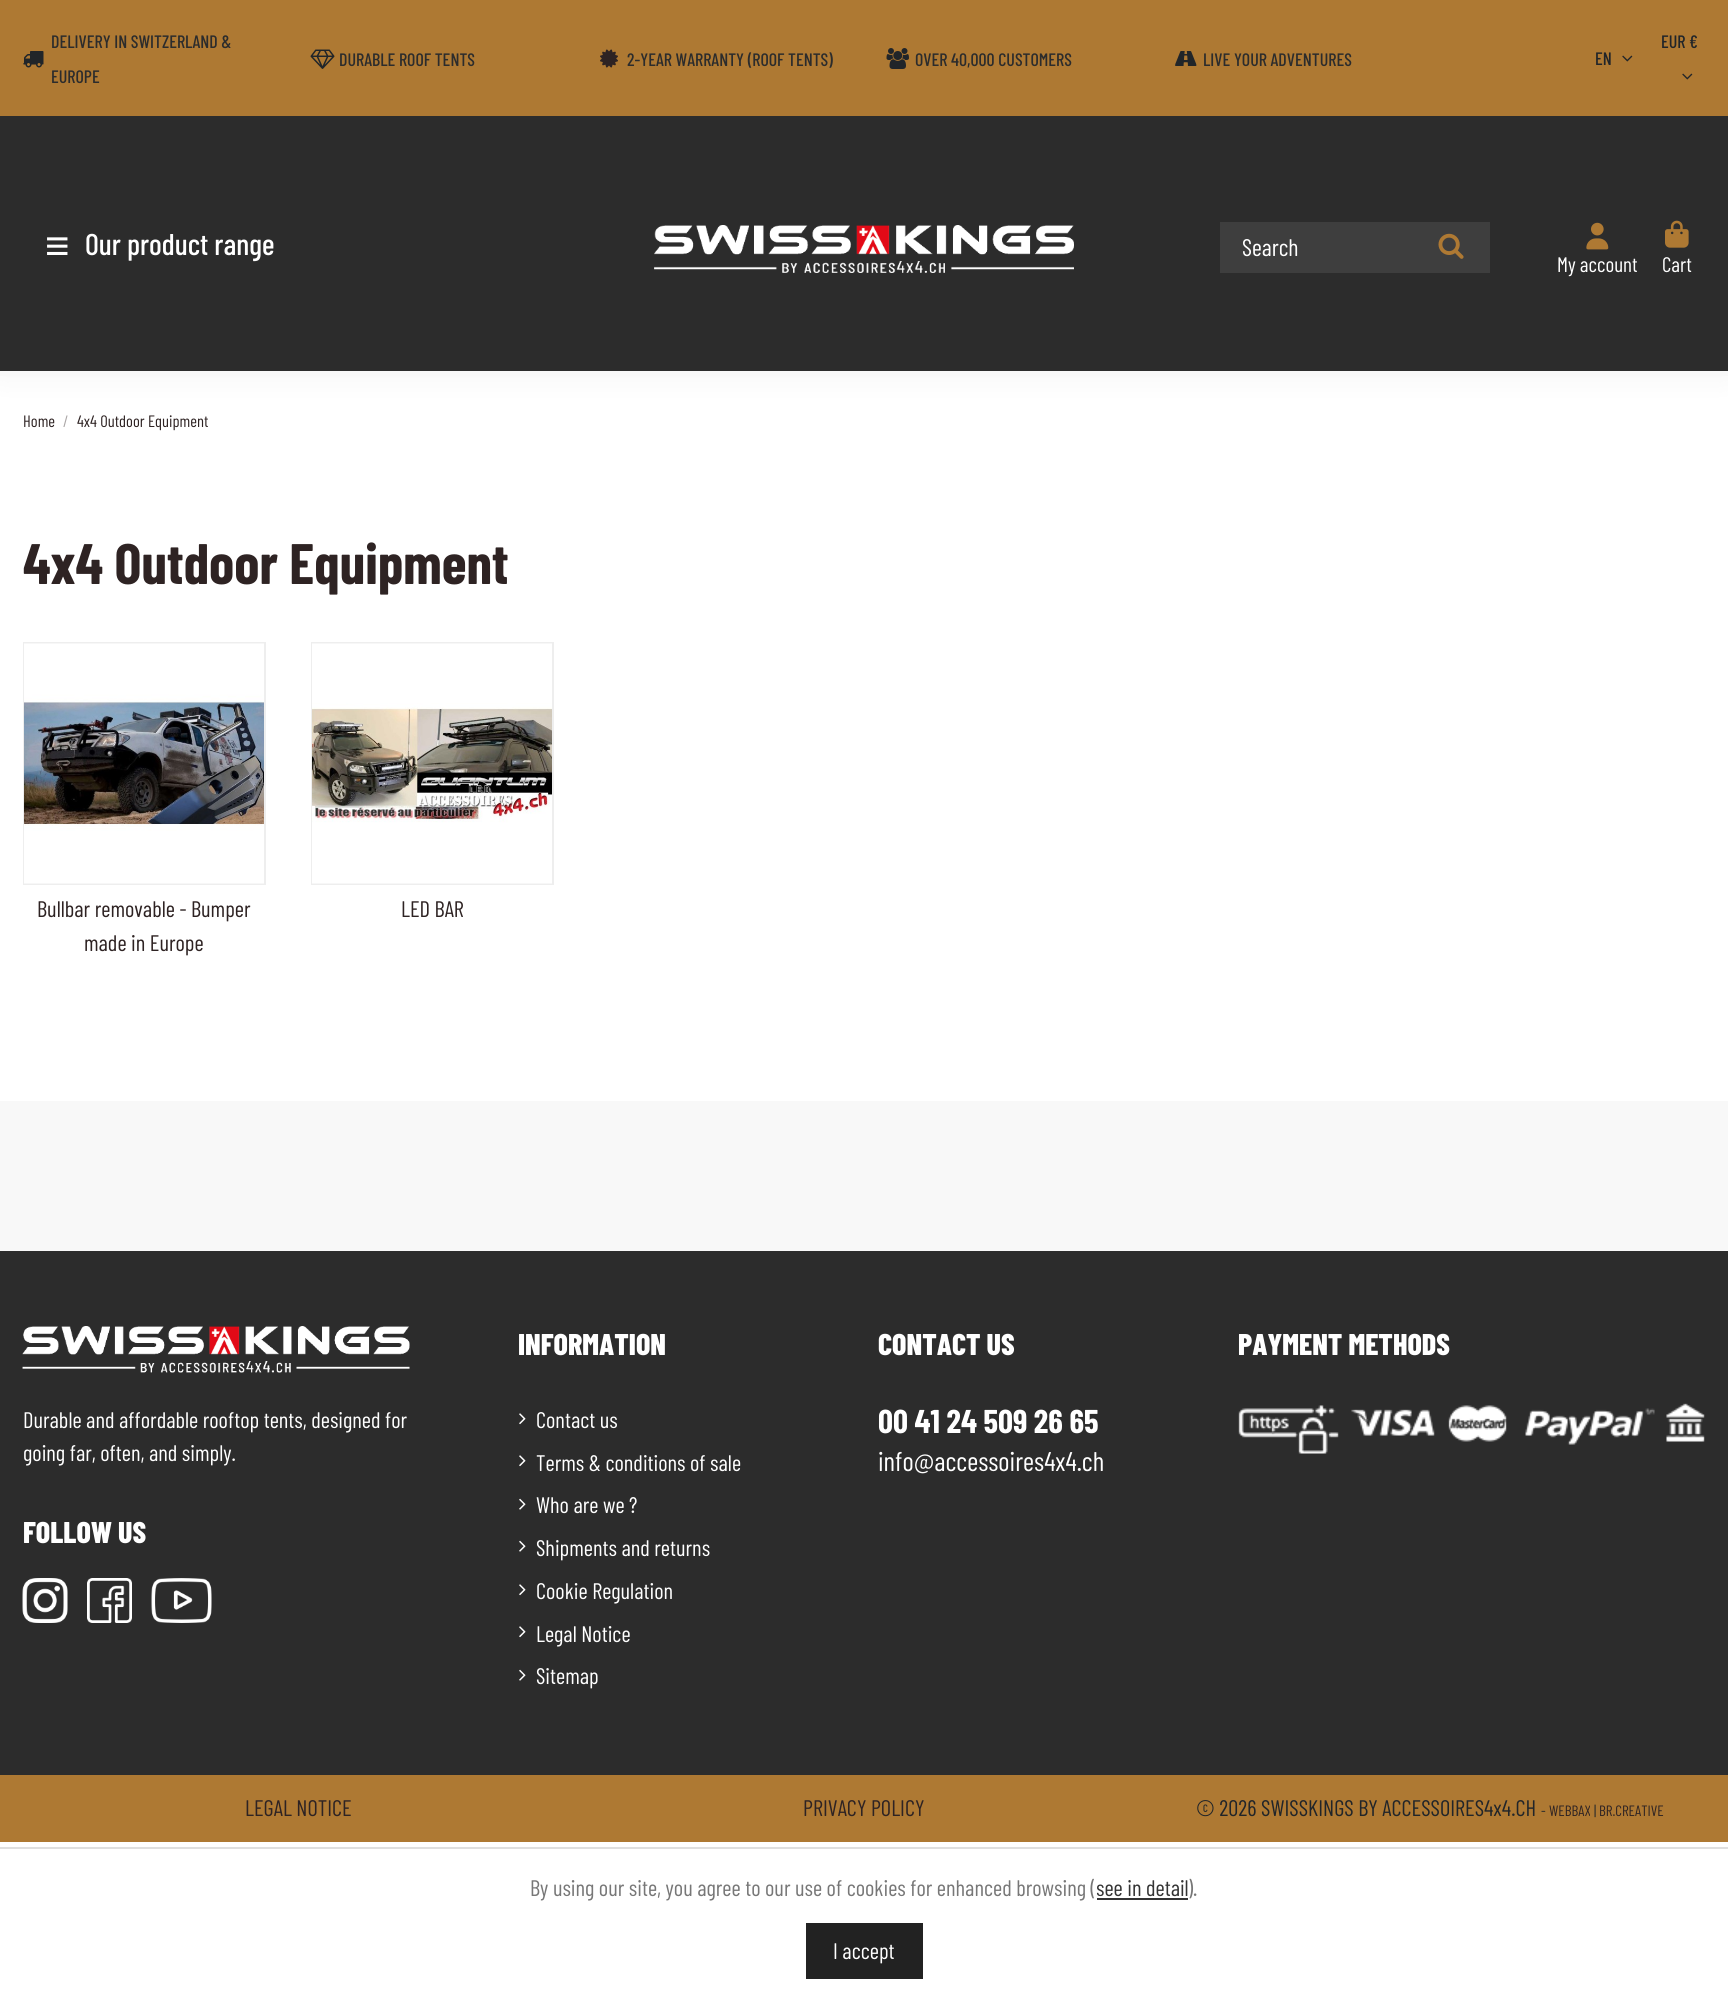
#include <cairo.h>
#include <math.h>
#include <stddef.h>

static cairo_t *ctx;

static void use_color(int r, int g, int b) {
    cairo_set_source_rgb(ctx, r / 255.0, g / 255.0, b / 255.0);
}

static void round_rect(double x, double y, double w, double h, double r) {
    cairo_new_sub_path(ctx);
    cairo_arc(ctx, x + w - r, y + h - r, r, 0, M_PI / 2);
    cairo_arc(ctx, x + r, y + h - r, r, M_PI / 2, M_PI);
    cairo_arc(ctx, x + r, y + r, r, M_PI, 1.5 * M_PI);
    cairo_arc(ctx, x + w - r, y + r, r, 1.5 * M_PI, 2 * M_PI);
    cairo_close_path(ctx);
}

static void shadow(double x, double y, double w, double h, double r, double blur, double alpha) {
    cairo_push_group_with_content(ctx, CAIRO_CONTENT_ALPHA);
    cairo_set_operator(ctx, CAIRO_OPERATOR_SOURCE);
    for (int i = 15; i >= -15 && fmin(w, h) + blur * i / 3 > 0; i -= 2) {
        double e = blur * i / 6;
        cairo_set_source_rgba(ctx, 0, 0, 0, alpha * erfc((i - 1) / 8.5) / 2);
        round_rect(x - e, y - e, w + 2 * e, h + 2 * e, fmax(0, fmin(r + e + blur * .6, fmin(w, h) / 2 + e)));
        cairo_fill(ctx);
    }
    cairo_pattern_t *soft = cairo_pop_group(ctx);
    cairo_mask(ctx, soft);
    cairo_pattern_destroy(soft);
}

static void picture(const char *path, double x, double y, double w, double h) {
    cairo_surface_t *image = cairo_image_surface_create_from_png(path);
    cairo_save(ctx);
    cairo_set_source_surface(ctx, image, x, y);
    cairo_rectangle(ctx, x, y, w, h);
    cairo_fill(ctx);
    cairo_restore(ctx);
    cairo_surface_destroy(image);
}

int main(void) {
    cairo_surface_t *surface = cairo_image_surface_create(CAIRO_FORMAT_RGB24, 1728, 2001);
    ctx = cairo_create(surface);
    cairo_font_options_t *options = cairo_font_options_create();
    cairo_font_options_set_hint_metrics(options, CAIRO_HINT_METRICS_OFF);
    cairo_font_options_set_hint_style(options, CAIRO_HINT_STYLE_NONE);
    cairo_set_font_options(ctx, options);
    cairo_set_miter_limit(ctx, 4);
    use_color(255, 255, 255);
    cairo_paint(ctx);
    use_color(0, 0, 0);
    shadow(0, 0, 1728, 375, 0, 15, 0.05);
    use_color(44, 44, 44);
    cairo_rectangle(ctx, 0, 116, 1728, 255);
    cairo_fill(ctx);
    use_color(248, 248, 248);
    cairo_rectangle(ctx, 0, 371, 1728, 5);
    cairo_fill(ctx);
    use_color(174, 121, 51);
    cairo_rectangle(ctx, 0, 0, 1728, 116);
    cairo_fill(ctx);
    picture("img1.png", 23, 51, 21, 17);
    cairo_select_font_face(ctx, "Barlow Condensed Medium", CAIRO_FONT_SLANT_NORMAL, CAIRO_FONT_WEIGHT_NORMAL);
    cairo_set_font_size(ctx, 18);
    use_color(44, 44, 44);
    cairo_move_to(ctx, 51, 48);
    cairo_show_text(ctx, "DELIVERY IN SWITZERLAND &");
    cairo_move_to(ctx, 51, 83);
    cairo_show_text(ctx, "EUROPE");
    picture("img2.png", 310, 49, 25, 20);
    cairo_move_to(ctx, 339, 66);
    cairo_show_text(ctx, "DURABLE ROOF TENTS");
    picture("img3.png", 600, 49, 18, 19);
    cairo_move_to(ctx, 627, 66);
    cairo_show_text(ctx, "2-YEAR WARRANTY (ROOF TENTS)");
    picture("img4.png", 886, 48, 23, 21);
    cairo_move_to(ctx, 915, 66);
    cairo_show_text(ctx, "OVER 40,000 CUSTOMERS");
    picture("img5.png", 1175, 51, 22, 15);
    cairo_move_to(ctx, 1203, 66);
    cairo_show_text(ctx, "LIVE YOUR ADVENTURES");
    use_color(33, 37, 41);
    cairo_move_to(ctx, 1661, 48);
    cairo_show_text(ctx, "EUR €");
    picture("img6.png", 1682, 73, 11, 7);
    cairo_move_to(ctx, 1595, 65);
    cairo_show_text(ctx, "EN");
    picture("img6.png", 1622, 55, 11, 7);
    cairo_select_font_face(ctx, "Liberation Sans", CAIRO_FONT_SLANT_NORMAL, CAIRO_FONT_WEIGHT_NORMAL);
    cairo_set_font_size(ctx, 42);
    use_color(255, 255, 255);
    cairo_move_to(ctx, 45, 260);
    cairo_show_text(ctx, "≡");
    cairo_select_font_face(ctx, "Barlow Condensed Medium", CAIRO_FONT_SLANT_NORMAL, CAIRO_FONT_WEIGHT_NORMAL);
    cairo_set_font_size(ctx, 30);
    cairo_move_to(ctx, 85, 255);
    cairo_show_text(ctx, "Our product range");
    picture("img7.png", 654, 225, 420, 48);
    use_color(62, 62, 62);
    cairo_rectangle(ctx, 1220, 222, 270, 51);
    cairo_fill(ctx);
    cairo_select_font_face(ctx, "Barlow Condensed", CAIRO_FONT_SLANT_NORMAL, CAIRO_FONT_WEIGHT_NORMAL);
    cairo_set_font_size(ctx, 24);
    use_color(255, 255, 255);
    cairo_move_to(ctx, 1242, 256);
    cairo_show_text(ctx, "Search");
    picture("img8.png", 1438, 233, 26, 26);
    picture("img9.png", 1586, 222, 23, 28);
    cairo_set_font_size(ctx, 21);
    cairo_move_to(ctx, 1557, 272);
    cairo_show_text(ctx, "My account");
    picture("img10.png", 1665, 220, 24, 28);
    cairo_move_to(ctx, 1662, 272);
    cairo_show_text(ctx, "Cart");
    cairo_set_font_size(ctx, 16.5);
    use_color(46, 35, 35);
    cairo_move_to(ctx, 23, 427);
    cairo_show_text(ctx, "Home");
    use_color(171, 167, 167);
    cairo_move_to(ctx, 63, 427);
    cairo_show_text(ctx, "/");
    use_color(46, 35, 35);
    cairo_move_to(ctx, 77, 427);
    cairo_show_text(ctx, "4x4 Outdoor Equipment");
    cairo_select_font_face(ctx, "Barlow Condensed", CAIRO_FONT_SLANT_NORMAL, CAIRO_FONT_WEIGHT_BOLD);
    cairo_set_font_size(ctx, 57);
    cairo_move_to(ctx, 23, 584);
    cairo_show_text(ctx, "4x4 Outdoor Equipment");
    cairo_rectangle(ctx, 24, 643, 241, 241);
    use_color(238, 238, 238);
    cairo_stroke(ctx);
    picture("img11.png", 24, 643, 240, 241);
    cairo_select_font_face(ctx, "Barlow Condensed", CAIRO_FONT_SLANT_NORMAL, CAIRO_FONT_WEIGHT_NORMAL);
    cairo_set_font_size(ctx, 22.5);
    use_color(46, 35, 35);
    cairo_move_to(ctx, 37, 917);
    cairo_show_text(ctx, "Bullbar removable - Bumper");
    cairo_move_to(ctx, 84, 951);
    cairo_show_text(ctx, "made in Europe");
    cairo_rectangle(ctx, 312, 643, 241, 241);
    use_color(238, 238, 238);
    cairo_stroke(ctx);
    picture("img12.png", 312, 643, 240, 241);
    use_color(46, 35, 35);
    cairo_move_to(ctx, 401, 917);
    cairo_show_text(ctx, "LED BAR");
    use_color(248, 248, 248);
    cairo_rectangle(ctx, 0, 1101, 1728, 150);
    cairo_fill(ctx);
    use_color(44, 44, 44);
    cairo_rectangle(ctx, 0, 1251, 1728, 524);
    cairo_fill(ctx);
    cairo_select_font_face(ctx, "Barlow Condensed ExtraBold", CAIRO_FONT_SLANT_NORMAL, CAIRO_FONT_WEIGHT_NORMAL);
    cairo_set_font_size(ctx, 30);
    use_color(255, 255, 255);
    cairo_move_to(ctx, 518, 1355);
    cairo_show_text(ctx, "INFORMATION");
    picture("img13.png", 519, 1413, 7, 12);
    cairo_select_font_face(ctx, "Barlow Condensed", CAIRO_FONT_SLANT_NORMAL, CAIRO_FONT_WEIGHT_NORMAL);
    cairo_set_font_size(ctx, 22.5);
    cairo_move_to(ctx, 536, 1428);
    cairo_show_text(ctx, "Contact us");
    picture("img13.png", 519, 1455, 7, 12);
    cairo_move_to(ctx, 536, 1471);
    cairo_show_text(ctx, "Terms & conditions of sale");
    picture("img14.png", 519, 1498, 7, 12);
    cairo_move_to(ctx, 536, 1513);
    cairo_show_text(ctx, "Who are we ?");
    picture("img14.png", 519, 1540, 7, 12);
    cairo_move_to(ctx, 536, 1556);
    cairo_show_text(ctx, "Shipments and returns");
    picture("img13.png", 519, 1584, 7, 12);
    cairo_move_to(ctx, 536, 1599);
    cairo_show_text(ctx, "Cookie Regulation");
    picture("img13.png", 519, 1626, 7, 12);
    cairo_move_to(ctx, 536, 1642);
    cairo_show_text(ctx, "Legal Notice");
    picture("img14.png", 519, 1669, 7, 12);
    cairo_move_to(ctx, 536, 1684);
    cairo_show_text(ctx, "Sitemap");
    cairo_select_font_face(ctx, "Barlow Condensed ExtraBold", CAIRO_FONT_SLANT_NORMAL, CAIRO_FONT_WEIGHT_NORMAL);
    cairo_set_font_size(ctx, 30);
    cairo_move_to(ctx, 878, 1355);
    cairo_show_text(ctx, "CONTACT US");
    cairo_select_font_face(ctx, "Barlow Condensed", CAIRO_FONT_SLANT_NORMAL, CAIRO_FONT_WEIGHT_BOLD);
    cairo_set_font_size(ctx, 33);
    cairo_move_to(ctx, 878, 1433);
    cairo_show_text(ctx, "00 41 24 509 26 65");
    cairo_select_font_face(ctx, "Barlow Condensed", CAIRO_FONT_SLANT_NORMAL, CAIRO_FONT_WEIGHT_NORMAL);
    cairo_set_font_size(ctx, 27);
    cairo_move_to(ctx, 878, 1471);
    cairo_show_text(ctx, "info@accessoires4x4.ch");
    cairo_select_font_face(ctx, "Barlow Condensed ExtraBold", CAIRO_FONT_SLANT_NORMAL, CAIRO_FONT_WEIGHT_NORMAL);
    cairo_set_font_size(ctx, 30);
    cairo_move_to(ctx, 1238, 1355);
    cairo_show_text(ctx, "PAYMENT METHODS");
    picture("img15.png", 1238, 1403, 467, 51);
    picture("img16.png", 22, 1326, 388, 47);
    cairo_select_font_face(ctx, "Barlow Condensed", CAIRO_FONT_SLANT_NORMAL, CAIRO_FONT_WEIGHT_NORMAL);
    cairo_set_font_size(ctx, 22.5);
    cairo_move_to(ctx, 23, 1428);
    cairo_show_text(ctx, "Durable and affordable rooftop tents, designed for");
    cairo_move_to(ctx, 23, 1461);
    cairo_show_text(ctx, "going far, often, and simply.");
    cairo_select_font_face(ctx, "Barlow Condensed ExtraBold", CAIRO_FONT_SLANT_NORMAL, CAIRO_FONT_WEIGHT_NORMAL);
    cairo_set_font_size(ctx, 30);
    cairo_move_to(ctx, 23, 1543);
    cairo_show_text(ctx, "FOLLOW US");
    picture("img17.png", 22, 1578, 46, 45);
    picture("img18.png", 87, 1578, 45, 45);
    picture("img19.png", 151, 1578, 61, 45);
    use_color(174, 121, 51);
    cairo_rectangle(ctx, 0, 1775, 1728, 67);
    cairo_fill(ctx);
    cairo_select_font_face(ctx, "Barlow Condensed", CAIRO_FONT_SLANT_NORMAL, CAIRO_FONT_WEIGHT_NORMAL);
    cairo_set_font_size(ctx, 22.5);
    use_color(46, 35, 35);
    cairo_move_to(ctx, 245, 1816);
    cairo_show_text(ctx, "LEGAL NOTICE");
    cairo_move_to(ctx, 803, 1816);
    cairo_show_text(ctx, "PRIVACY POLICY");
    use_color(33, 37, 41);
    cairo_move_to(ctx, 1196, 1816);
    cairo_show_text(ctx, "© 2026 SWISSKINGS BY ACCESSOIRES4x4.CH");
    cairo_set_font_size(ctx, 15);
    cairo_move_to(ctx, 1541, 1816);
    cairo_show_text(ctx, "-");
    use_color(46, 35, 35);
    cairo_move_to(ctx, 1549, 1816);
    cairo_show_text(ctx, "WEBBAX");
    use_color(33, 37, 41);
    cairo_move_to(ctx, 1594, 1816);
    cairo_show_text(ctx, "|");
    use_color(46, 35, 35);
    cairo_move_to(ctx, 1599, 1816);
    cairo_show_text(ctx, "BR.CREATIVE");
    use_color(223, 223, 223);
    cairo_rectangle(ctx, 0, 1847, 1728, 2);
    cairo_fill(ctx);
    cairo_set_font_size(ctx, 22.5);
    use_color(119, 119, 119);
    cairo_move_to(ctx, 530, 1896);
    cairo_show_text(ctx, "By using our site, you agree to our use of cookies for enhanced browsing (");
    use_color(51, 51, 51);
    cairo_move_to(ctx, 1096, 1896);
    cairo_show_text(ctx, "see in detail");
    cairo_rectangle(ctx, 1097, 1898, 91, 2);
    cairo_fill(ctx);
    use_color(119, 119, 119);
    cairo_move_to(ctx, 1188, 1896);
    cairo_show_text(ctx, ").");
    use_color(34, 34, 34);
    cairo_rectangle(ctx, 806, 1923, 117, 56);
    cairo_fill(ctx);
    use_color(255, 255, 255);
    cairo_move_to(ctx, 833, 1959);
    cairo_show_text(ctx, "I accept");
    cairo_surface_write_to_png(surface, "result.png");
    cairo_font_options_destroy(options);
    cairo_destroy(ctx);
    cairo_surface_destroy(surface);
    return 0;
}
